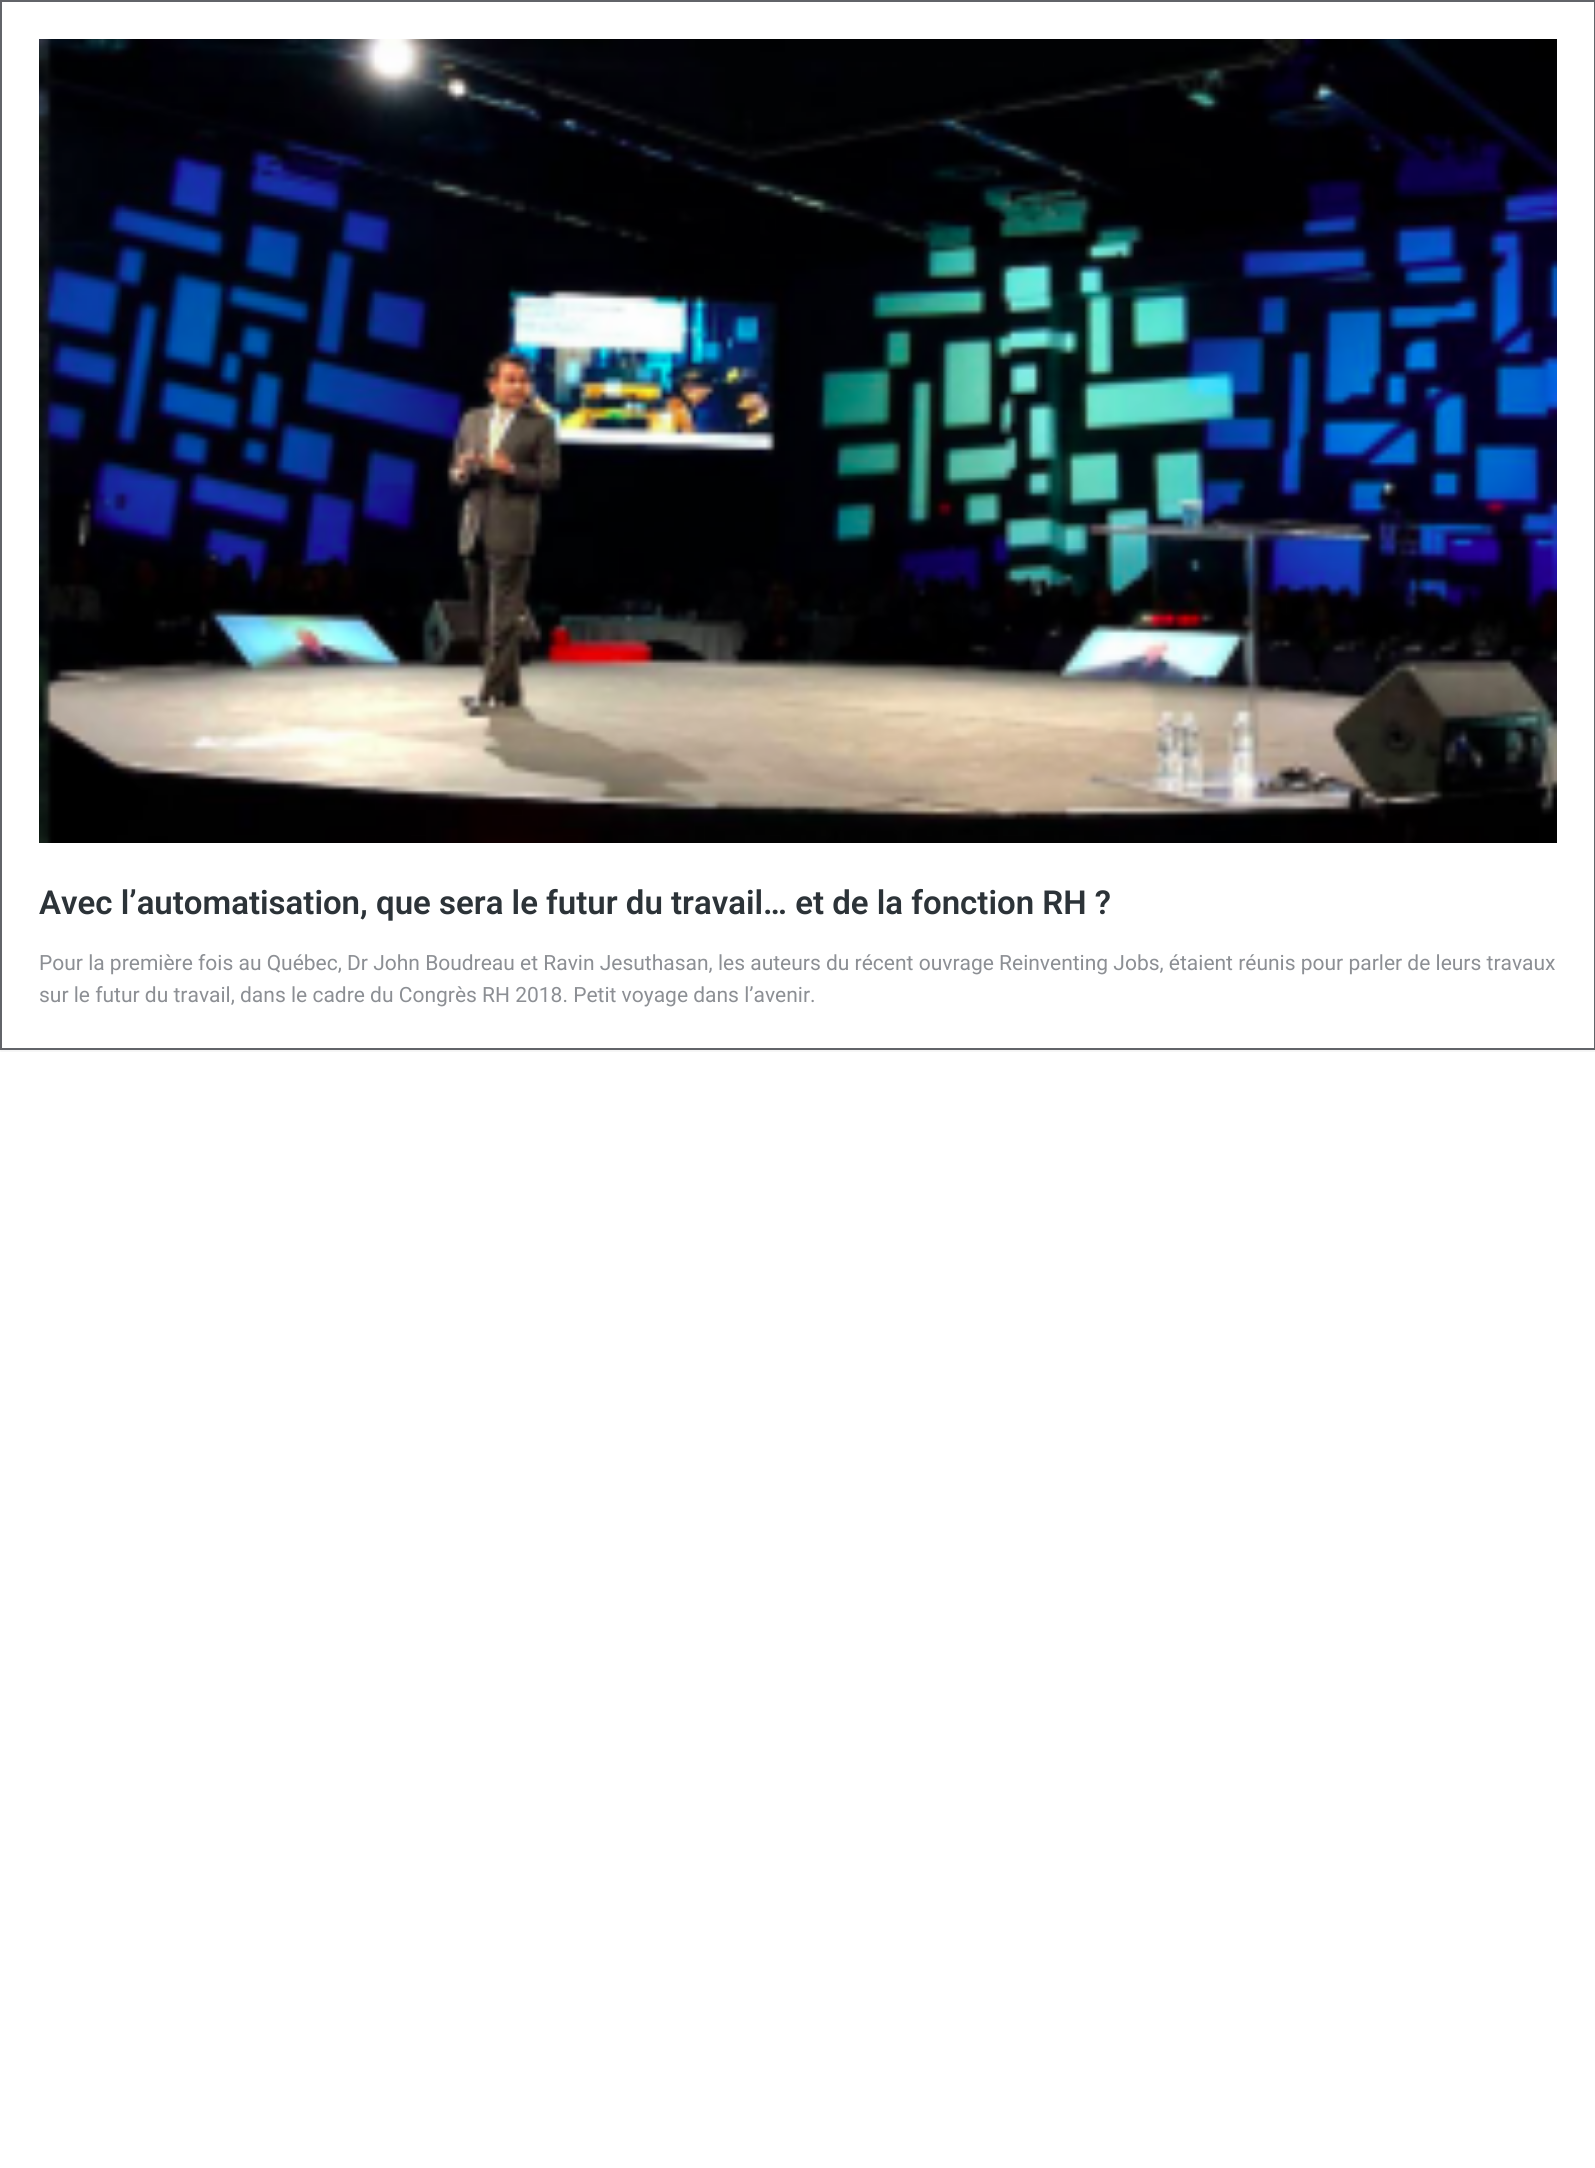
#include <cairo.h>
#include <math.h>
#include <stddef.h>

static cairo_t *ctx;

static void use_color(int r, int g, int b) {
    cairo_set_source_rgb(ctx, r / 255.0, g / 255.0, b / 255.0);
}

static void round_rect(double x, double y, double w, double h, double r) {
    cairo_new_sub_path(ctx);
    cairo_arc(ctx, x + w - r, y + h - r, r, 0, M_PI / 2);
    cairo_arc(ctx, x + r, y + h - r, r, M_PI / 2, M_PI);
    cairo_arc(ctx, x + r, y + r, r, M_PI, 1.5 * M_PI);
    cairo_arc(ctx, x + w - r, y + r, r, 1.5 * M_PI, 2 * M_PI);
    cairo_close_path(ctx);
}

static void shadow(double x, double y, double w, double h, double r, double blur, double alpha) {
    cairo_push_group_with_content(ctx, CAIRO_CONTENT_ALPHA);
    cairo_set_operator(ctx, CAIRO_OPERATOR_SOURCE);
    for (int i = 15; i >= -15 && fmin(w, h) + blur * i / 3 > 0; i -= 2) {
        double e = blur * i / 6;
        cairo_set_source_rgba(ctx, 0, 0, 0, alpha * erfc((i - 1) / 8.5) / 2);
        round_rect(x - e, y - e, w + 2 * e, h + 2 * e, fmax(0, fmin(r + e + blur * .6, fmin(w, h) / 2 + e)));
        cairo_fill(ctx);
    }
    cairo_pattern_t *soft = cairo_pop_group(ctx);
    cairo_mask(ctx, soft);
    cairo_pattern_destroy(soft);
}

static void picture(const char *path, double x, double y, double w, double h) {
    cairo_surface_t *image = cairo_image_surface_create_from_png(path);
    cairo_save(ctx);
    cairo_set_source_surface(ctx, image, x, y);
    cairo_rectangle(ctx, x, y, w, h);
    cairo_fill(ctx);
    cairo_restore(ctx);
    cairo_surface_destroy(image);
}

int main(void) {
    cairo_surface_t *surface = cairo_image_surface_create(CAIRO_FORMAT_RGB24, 1595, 2168);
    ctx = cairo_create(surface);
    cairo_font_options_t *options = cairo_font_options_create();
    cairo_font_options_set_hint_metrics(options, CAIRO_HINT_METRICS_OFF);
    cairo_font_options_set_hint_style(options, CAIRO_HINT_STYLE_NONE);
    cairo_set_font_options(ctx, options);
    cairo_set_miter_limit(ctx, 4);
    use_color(255, 255, 255);
    cairo_paint(ctx);
    cairo_save(ctx);
    cairo_rectangle(ctx, 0, 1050, 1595, 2);
    cairo_clip(ctx);
    use_color(0, 0, 0);
    shadow(0, 2, 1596, 1050, 0, 1, 0.05);
    cairo_restore(ctx);
    cairo_rectangle(ctx, 1, 1, 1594, 1048);
    use_color(98, 100, 105);
    cairo_stroke(ctx);
    picture("img1.png", 39, 39, 1518, 804);
    cairo_select_font_face(ctx, "Roboto SemiBold", CAIRO_FONT_SLANT_NORMAL, CAIRO_FONT_WEIGHT_NORMAL);
    cairo_set_font_size(ctx, 33);
    use_color(44, 51, 56);
    cairo_move_to(ctx, 39, 914);
    cairo_show_text(ctx, "Avec l’automatisation, que sera le futur du travail… et de la fonction RH ?");
    cairo_select_font_face(ctx, "Roboto", CAIRO_FONT_SLANT_NORMAL, CAIRO_FONT_WEIGHT_NORMAL);
    cairo_set_font_size(ctx, 21);
    use_color(140, 143, 148);
    cairo_move_to(ctx, 39, 970);
    cairo_show_text(ctx, "Pour la première fois au Québec, Dr John Boudreau et Ravin Jesuthasan, les auteurs du récent ouvrage Reinventing Jobs, étaient réunis pour parler de leurs travaux");
    cairo_move_to(ctx, 39, 1002);
    cairo_show_text(ctx, "sur le futur du travail, dans le cadre du Congrès RH 2018. Petit voyage dans l’avenir.");
    cairo_surface_write_to_png(surface, "result.png");
    cairo_font_options_destroy(options);
    cairo_destroy(ctx);
    cairo_surface_destroy(surface);
    return 0;
}
